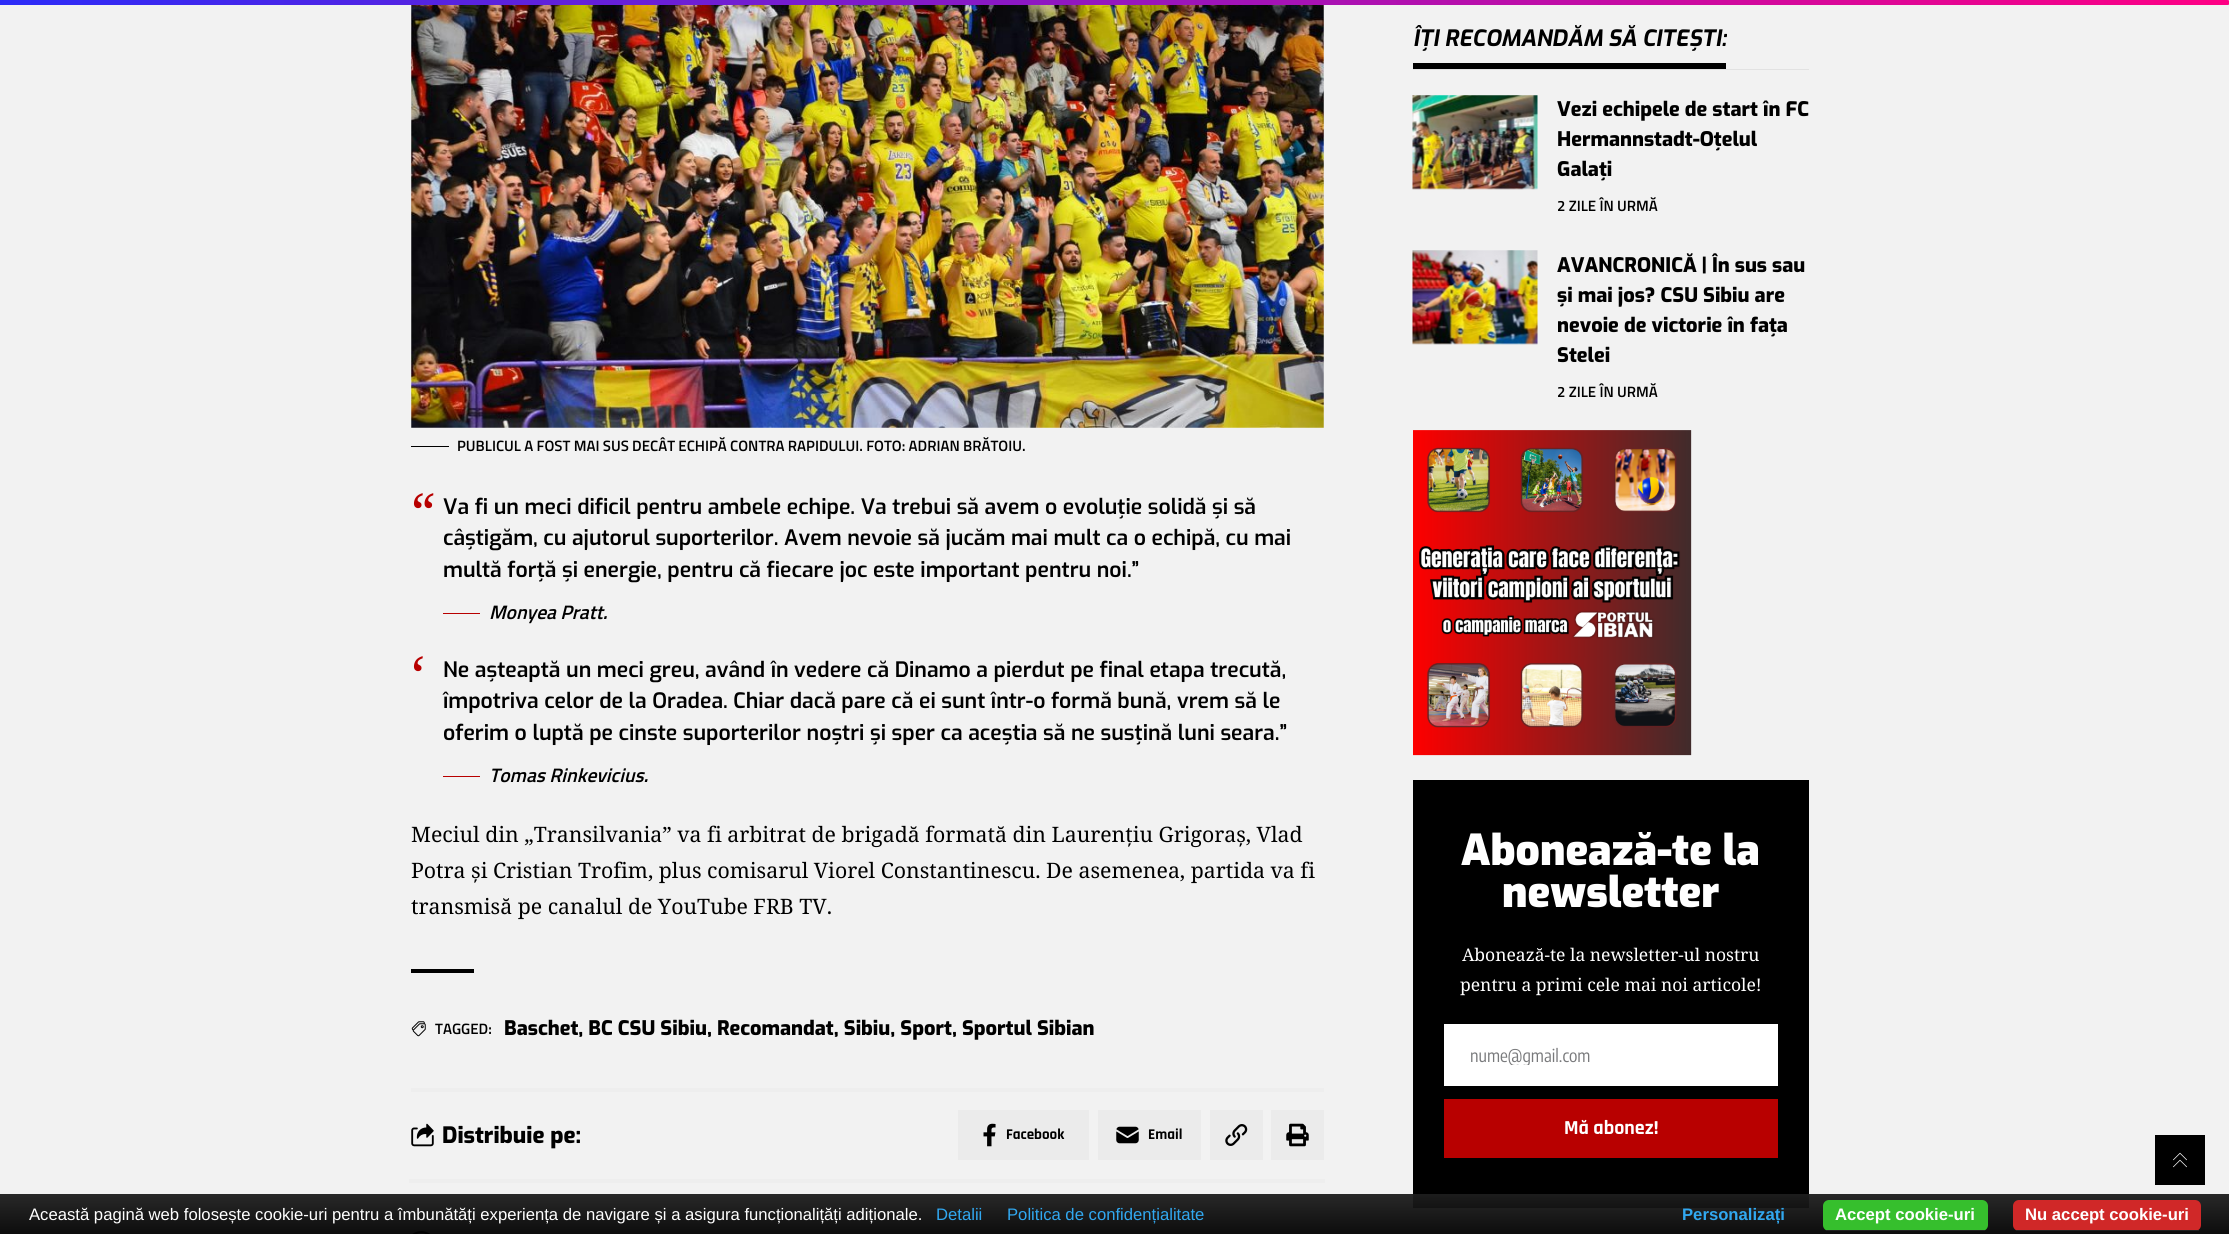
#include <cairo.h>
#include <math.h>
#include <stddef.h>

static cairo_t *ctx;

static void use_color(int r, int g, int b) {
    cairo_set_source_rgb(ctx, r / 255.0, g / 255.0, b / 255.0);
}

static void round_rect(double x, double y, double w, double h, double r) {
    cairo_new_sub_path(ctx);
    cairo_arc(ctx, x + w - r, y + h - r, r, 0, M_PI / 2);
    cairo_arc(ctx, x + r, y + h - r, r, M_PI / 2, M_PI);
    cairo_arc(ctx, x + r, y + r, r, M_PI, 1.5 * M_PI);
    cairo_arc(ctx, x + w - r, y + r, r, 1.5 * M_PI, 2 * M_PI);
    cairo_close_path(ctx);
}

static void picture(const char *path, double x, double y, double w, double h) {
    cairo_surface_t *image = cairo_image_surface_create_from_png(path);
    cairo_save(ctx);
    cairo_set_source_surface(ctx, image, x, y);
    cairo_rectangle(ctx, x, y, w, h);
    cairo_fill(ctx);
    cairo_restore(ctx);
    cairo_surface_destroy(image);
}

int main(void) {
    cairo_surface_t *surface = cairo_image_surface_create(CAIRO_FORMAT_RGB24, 2229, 1234);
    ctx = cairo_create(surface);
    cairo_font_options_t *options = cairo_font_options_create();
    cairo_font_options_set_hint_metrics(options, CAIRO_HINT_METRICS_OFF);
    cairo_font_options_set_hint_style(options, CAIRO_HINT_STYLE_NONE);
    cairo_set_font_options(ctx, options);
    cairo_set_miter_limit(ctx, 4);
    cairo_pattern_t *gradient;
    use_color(242, 242, 242);
    cairo_paint(ctx);
    gradient = cairo_pattern_create_linear(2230, 2.5, 0, 2.5);
    cairo_pattern_add_color_stop_rgba(gradient, 0, 1, 0, 0.518, 1);
    cairo_pattern_add_color_stop_rgba(gradient, 1, 0.173, 0.173, 0.973, 1);
    cairo_set_source(ctx, gradient);
    cairo_pattern_destroy(gradient);
    cairo_new_path(ctx);
    cairo_move_to(ctx, 0, 0);
    cairo_line_to(ctx, 2227.5, 0);
    cairo_curve_to(ctx, 2229, 0, 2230, 1, 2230, 2.5);
    cairo_curve_to(ctx, 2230, 4, 2229, 5, 2227.5, 5);
    cairo_line_to(ctx, 0, 5);
    cairo_close_path(ctx);
    cairo_fill(ctx);
    picture("img1.png", 411, 5, 913, 423);
    use_color(0, 0, 0);
    cairo_rectangle(ctx, 411, 446, 38, 1);
    cairo_fill(ctx);
    cairo_select_font_face(ctx, "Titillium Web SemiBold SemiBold", CAIRO_FONT_SLANT_NORMAL, CAIRO_FONT_WEIGHT_NORMAL);
    cairo_set_font_size(ctx, 15);
    cairo_move_to(ctx, 457, 451);
    cairo_show_text(ctx, "PUBLICUL A FOST MAI SUS DECÂT ECHIPĂ CONTRA RAPIDULUI. FOTO: ADRIAN BRĂTOIU.");
    cairo_select_font_face(ctx, "Noto Serif", CAIRO_FONT_SLANT_NORMAL, CAIRO_FONT_WEIGHT_NORMAL);
    cairo_set_font_size(ctx, 53);
    use_color(184, 0, 0);
    cairo_move_to(ctx, 411, 531);
    cairo_show_text(ctx, "“");
    cairo_select_font_face(ctx, "Exo SemiBold", CAIRO_FONT_SLANT_NORMAL, CAIRO_FONT_WEIGHT_NORMAL);
    cairo_set_font_size(ctx, 21.25);
    use_color(0, 0, 0);
    cairo_move_to(ctx, 443, 514);
    cairo_show_text(ctx, "Va fi un meci dificil pentru ambele echipe. Va trebui să avem o evoluție solidă și să");
    cairo_move_to(ctx, 443, 545);
    cairo_show_text(ctx, "câștigăm, cu ajutorul suporterilor. Avem nevoie să jucăm mai mult ca o echipă, cu mai");
    cairo_move_to(ctx, 443, 577);
    cairo_show_text(ctx, "multă forță și energie, pentru că fiecare joc este important pentru noi.”");
    use_color(184, 0, 0);
    cairo_rectangle(ctx, 443, 613, 37, 1);
    cairo_fill(ctx);
    cairo_select_font_face(ctx, "Titillium Web SemiBold SemiBold", CAIRO_FONT_SLANT_ITALIC, CAIRO_FONT_WEIGHT_NORMAL);
    cairo_set_font_size(ctx, 19.5);
    use_color(0, 0, 0);
    cairo_move_to(ctx, 489, 619);
    cairo_show_text(ctx, "Monyea Pratt.");
    cairo_select_font_face(ctx, "Noto Serif", CAIRO_FONT_SLANT_NORMAL, CAIRO_FONT_WEIGHT_NORMAL);
    cairo_set_font_size(ctx, 53);
    use_color(184, 0, 0);
    cairo_move_to(ctx, 411, 694);
    cairo_show_text(ctx, "‘");
    cairo_select_font_face(ctx, "Exo SemiBold", CAIRO_FONT_SLANT_NORMAL, CAIRO_FONT_WEIGHT_NORMAL);
    cairo_set_font_size(ctx, 21.25);
    use_color(0, 0, 0);
    cairo_move_to(ctx, 443, 677);
    cairo_show_text(ctx, "Ne așteaptă un meci greu, având în vedere că Dinamo a pierdut pe final etapa trecută,");
    cairo_move_to(ctx, 443, 708);
    cairo_show_text(ctx, "împotriva celor de la Oradea. Chiar dacă pare că ei sunt într-o formă bună, vrem să le");
    cairo_move_to(ctx, 443, 740);
    cairo_show_text(ctx, "oferim o luptă pe cinste suporterilor noștri și sper ca aceștia să ne susțină luni seara.”");
    use_color(184, 0, 0);
    cairo_rectangle(ctx, 443, 776, 37, 1);
    cairo_fill(ctx);
    cairo_select_font_face(ctx, "Titillium Web SemiBold SemiBold", CAIRO_FONT_SLANT_ITALIC, CAIRO_FONT_WEIGHT_NORMAL);
    cairo_set_font_size(ctx, 19.5);
    use_color(0, 0, 0);
    cairo_move_to(ctx, 489, 782);
    cairo_show_text(ctx, "Tomas Rinkevicius.");
    cairo_select_font_face(ctx, "Noto Serif", CAIRO_FONT_SLANT_NORMAL, CAIRO_FONT_WEIGHT_NORMAL);
    cairo_set_font_size(ctx, 21.25);
    cairo_move_to(ctx, 411, 842);
    cairo_show_text(ctx, "Meciul din „Transilvania” va fi arbitrat de brigadă formată din Laurențiu Grigoraș, Vlad");
    cairo_move_to(ctx, 411, 878);
    cairo_show_text(ctx, "Potra și Cristian Trofim, plus comisarul Viorel Constantinescu. De asemenea, partida va fi");
    cairo_move_to(ctx, 411, 914);
    cairo_show_text(ctx, "transmisă pe canalul de YouTube FRB TV.");
    cairo_rectangle(ctx, 411, 969, 63, 4);
    cairo_fill(ctx);
    picture("img2.png", 411, 1021, 15, 16);
    cairo_select_font_face(ctx, "Titillium Web SemiBold SemiBold", CAIRO_FONT_SLANT_NORMAL, CAIRO_FONT_WEIGHT_NORMAL);
    cairo_set_font_size(ctx, 15);
    cairo_move_to(ctx, 435, 1034);
    cairo_show_text(ctx, "TAGGED:");
    cairo_select_font_face(ctx, "Exo ExtraBold", CAIRO_FONT_SLANT_NORMAL, CAIRO_FONT_WEIGHT_NORMAL);
    cairo_set_font_size(ctx, 20);
    cairo_move_to(ctx, 504, 1035);
    cairo_show_text(ctx, "Baschet, BC CSU Sibiu, Recomandat, Sibiu, Sport, Sportul Sibian");
    use_color(238, 238, 238);
    cairo_rectangle(ctx, 411, 1088, 913, 4);
    cairo_fill(ctx);
    picture("img3.png", 411, 1123, 23, 24);
    cairo_set_font_size(ctx, 22.5);
    use_color(0, 0, 0);
    cairo_move_to(ctx, 442, 1143);
    cairo_show_text(ctx, "Distribuie pe:");
    use_color(235, 235, 235);
    cairo_rectangle(ctx, 958, 1110, 131, 50);
    cairo_fill(ctx);
    picture("img4.png", 983, 1123, 13, 24);
    cairo_select_font_face(ctx, "Rajdhani", CAIRO_FONT_SLANT_NORMAL, CAIRO_FONT_WEIGHT_BOLD);
    cairo_set_font_size(ctx, 15);
    use_color(0, 0, 0);
    cairo_move_to(ctx, 1006, 1139);
    cairo_show_text(ctx, "Facebook");
    use_color(235, 235, 235);
    cairo_rectangle(ctx, 1098, 1110, 103, 50);
    cairo_fill(ctx);
    picture("img5.png", 1116, 1126, 23, 18);
    use_color(0, 0, 0);
    cairo_move_to(ctx, 1148, 1139);
    cairo_show_text(ctx, "Email");
    use_color(235, 235, 235);
    cairo_rectangle(ctx, 1210, 1110, 53, 50);
    cairo_fill(ctx);
    picture("img6.png", 1225, 1124, 23, 22);
    cairo_rectangle(ctx, 1271, 1110, 53, 50);
    cairo_fill(ctx);
    picture("img7.png", 1286, 1123, 23, 24);
    use_color(238, 238, 238);
    cairo_rectangle(ctx, 409, 1179, 916, 4);
    cairo_fill(ctx);
    picture("img8.png", 412, 1231, 18, 3);
    use_color(235, 235, 235);
    cairo_rectangle(ctx, 1076, 1225, 249, 9);
    cairo_fill(ctx);
    use_color(226, 226, 226);
    cairo_rectangle(ctx, 1413, 69, 396, 1);
    cairo_fill(ctx);
    use_color(0, 0, 0);
    cairo_rectangle(ctx, 1413, 63, 313, 6);
    cairo_fill(ctx);
    cairo_select_font_face(ctx, "Exo", CAIRO_FONT_SLANT_ITALIC, CAIRO_FONT_WEIGHT_BOLD);
    cairo_set_font_size(ctx, 22.5);
    cairo_move_to(ctx, 1413, 46);
    cairo_show_text(ctx, "ÎȚI RECOMANDĂM SĂ CITEȘTI:");
    picture("img9.png", 1412, 95, 126, 95);
    cairo_select_font_face(ctx, "Exo ExtraBold", CAIRO_FONT_SLANT_NORMAL, CAIRO_FONT_WEIGHT_NORMAL);
    cairo_set_font_size(ctx, 20);
    cairo_move_to(ctx, 1557, 116);
    cairo_show_text(ctx, "Vezi echipele de start în FC");
    cairo_move_to(ctx, 1557, 146);
    cairo_show_text(ctx, "Hermannstadt-Oțelul");
    cairo_move_to(ctx, 1557, 176);
    cairo_show_text(ctx, "Galați");
    cairo_select_font_face(ctx, "Titillium Web SemiBold SemiBold", CAIRO_FONT_SLANT_NORMAL, CAIRO_FONT_WEIGHT_NORMAL);
    cairo_set_font_size(ctx, 15);
    cairo_move_to(ctx, 1557, 211);
    cairo_show_text(ctx, "2 ZILE ÎN URMĂ");
    picture("img10.png", 1412, 250, 126, 95);
    cairo_select_font_face(ctx, "Exo ExtraBold", CAIRO_FONT_SLANT_NORMAL, CAIRO_FONT_WEIGHT_NORMAL);
    cairo_set_font_size(ctx, 20);
    cairo_move_to(ctx, 1557, 272);
    cairo_show_text(ctx, "AVANCRONICĂ | În sus sau");
    cairo_move_to(ctx, 1557, 302);
    cairo_show_text(ctx, "și mai jos? CSU Sibiu are");
    cairo_move_to(ctx, 1557, 332);
    cairo_show_text(ctx, "nevoie de victorie în fața");
    cairo_move_to(ctx, 1557, 362);
    cairo_show_text(ctx, "Stelei");
    cairo_select_font_face(ctx, "Titillium Web SemiBold SemiBold", CAIRO_FONT_SLANT_NORMAL, CAIRO_FONT_WEIGHT_NORMAL);
    cairo_set_font_size(ctx, 15);
    cairo_move_to(ctx, 1557, 397);
    cairo_show_text(ctx, "2 ZILE ÎN URMĂ");
    picture("img11.png", 1413, 430, 279, 326);
    cairo_rectangle(ctx, 1413, 780, 396, 428);
    cairo_fill(ctx);
    cairo_select_font_face(ctx, "Exo Black", CAIRO_FONT_SLANT_NORMAL, CAIRO_FONT_WEIGHT_NORMAL);
    cairo_set_font_size(ctx, 42.5);
    use_color(255, 255, 255);
    cairo_move_to(ctx, 1461, 865);
    cairo_show_text(ctx, "Abonează-te la");
    cairo_move_to(ctx, 1502, 907);
    cairo_show_text(ctx, "newsletter");
    cairo_select_font_face(ctx, "Noto Serif", CAIRO_FONT_SLANT_NORMAL, CAIRO_FONT_WEIGHT_NORMAL);
    cairo_set_font_size(ctx, 17.5);
    cairo_move_to(ctx, 1462, 961);
    cairo_show_text(ctx, "Abonează-te la newsletter-ul nostru");
    cairo_move_to(ctx, 1460, 991);
    cairo_show_text(ctx, "pentru a primi cele mai noi articole!");
    cairo_rectangle(ctx, 1444, 1024, 334, 62);
    cairo_fill(ctx);
    cairo_save(ctx);
    cairo_rectangle(ctx, 1470, 1044, 281, 21);
    cairo_clip(ctx);
    cairo_select_font_face(ctx, "Encode Sans Condensed", CAIRO_FONT_SLANT_NORMAL, CAIRO_FONT_WEIGHT_NORMAL);
    use_color(121, 122, 124);
    cairo_move_to(ctx, 1470, 1062);
    cairo_show_text(ctx, "nume@gmail.com");
    cairo_restore(ctx);
    use_color(184, 0, 0);
    cairo_rectangle(ctx, 1444, 1099, 334, 59);
    cairo_fill(ctx);
    cairo_select_font_face(ctx, "Rajdhani", CAIRO_FONT_SLANT_NORMAL, CAIRO_FONT_WEIGHT_BOLD);
    cairo_set_font_size(ctx, 20);
    use_color(255, 255, 255);
    cairo_move_to(ctx, 1564, 1134);
    cairo_show_text(ctx, "Mă abonez!");
    use_color(0, 0, 0);
    cairo_rectangle(ctx, 2155, 1135, 50, 50);
    cairo_fill(ctx);
    picture("img12.png", 2173, 1152, 14, 16);
    gradient = cairo_pattern_create_linear(1115, 1194, 1115, 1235);
    cairo_pattern_add_color_stop_rgba(gradient, 0, 0.118, 0.118, 0.118, 0.95);
    cairo_pattern_add_color_stop_rgba(gradient, 1, 0, 0, 0, 0.95);
    cairo_set_source(ctx, gradient);
    cairo_pattern_destroy(gradient);
    cairo_rectangle(ctx, 0, 1194, 2229, 40);
    cairo_fill(ctx);
    cairo_select_font_face(ctx, "Liberation Sans", CAIRO_FONT_SLANT_NORMAL, CAIRO_FONT_WEIGHT_NORMAL);
    cairo_set_font_size(ctx, 16.67);
    use_color(255, 255, 255);
    cairo_move_to(ctx, 29, 1220);
    cairo_show_text(ctx, "Această pagină web folosește cookie-uri pentru a îmbunătăți experiența de navigare și a asigura funcționalițăți adiționale.");
    use_color(49, 168, 240);
    cairo_move_to(ctx, 936, 1220);
    cairo_show_text(ctx, "Detalii");
    cairo_move_to(ctx, 1007, 1220);
    cairo_show_text(ctx, "Politica de confidențialitate");
    cairo_select_font_face(ctx, "Liberation Sans", CAIRO_FONT_SLANT_NORMAL, CAIRO_FONT_WEIGHT_BOLD);
    cairo_move_to(ctx, 1682, 1220);
    cairo_show_text(ctx, "Personalizați");
    use_color(54, 191, 45);
    round_rect(1823, 1200, 165, 31, 6);
    cairo_fill(ctx);
    use_color(34, 34, 34);
    cairo_rectangle(ctx, 1826, 1230, 159, 1);
    cairo_fill(ctx);
    use_color(255, 255, 255);
    cairo_move_to(ctx, 1835, 1220);
    cairo_show_text(ctx, "Accept cookie-uri");
    use_color(208, 40, 40);
    round_rect(2013, 1200, 188, 31, 6);
    cairo_fill(ctx);
    use_color(34, 34, 34);
    cairo_rectangle(ctx, 2016, 1230, 183, 1);
    cairo_fill(ctx);
    use_color(255, 255, 255);
    cairo_move_to(ctx, 2025, 1220);
    cairo_show_text(ctx, "Nu accept cookie-uri");
    cairo_surface_write_to_png(surface, "result.png");
    cairo_font_options_destroy(options);
    cairo_destroy(ctx);
    cairo_surface_destroy(surface);
    return 0;
}
